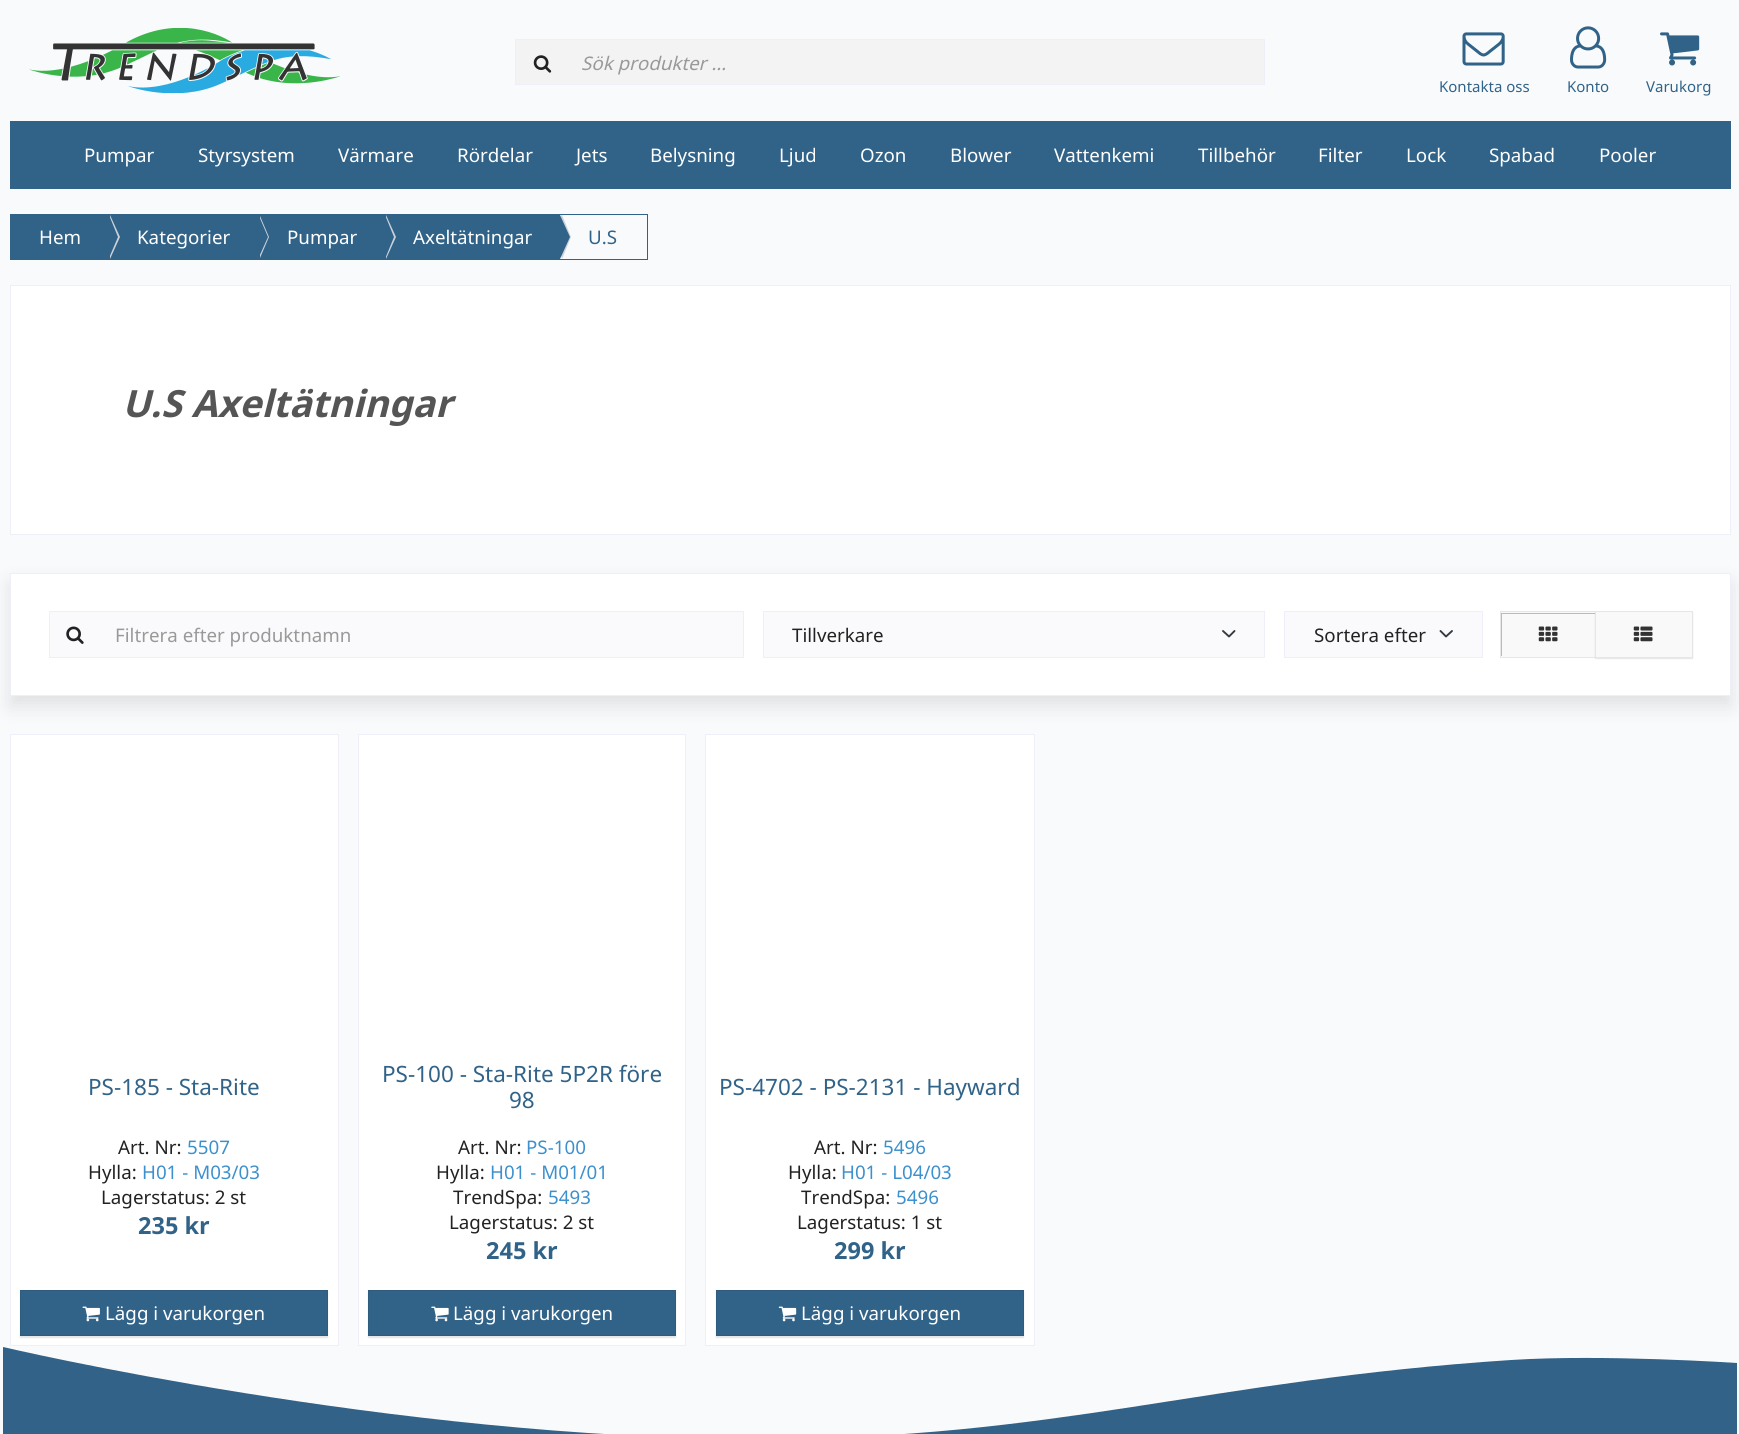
#include <cairo.h>
#include <math.h>
#include <stddef.h>

static cairo_t *ctx;

static void use_color(int r, int g, int b) {
    cairo_set_source_rgb(ctx, r / 255.0, g / 255.0, b / 255.0);
}

static void round_rect(double x, double y, double w, double h, double r) {
    cairo_new_sub_path(ctx);
    cairo_arc(ctx, x + w - r, y + h - r, r, 0, M_PI / 2);
    cairo_arc(ctx, x + r, y + h - r, r, M_PI / 2, M_PI);
    cairo_arc(ctx, x + r, y + r, r, M_PI, 1.5 * M_PI);
    cairo_arc(ctx, x + w - r, y + r, r, 1.5 * M_PI, 2 * M_PI);
    cairo_close_path(ctx);
}

static void shadow(double x, double y, double w, double h, double r, double blur, double alpha) {
    cairo_push_group_with_content(ctx, CAIRO_CONTENT_ALPHA);
    cairo_set_operator(ctx, CAIRO_OPERATOR_SOURCE);
    for (int i = 15; i >= -15 && fmin(w, h) + blur * i / 3 > 0; i -= 2) {
        double e = blur * i / 6;
        cairo_set_source_rgba(ctx, 0, 0, 0, alpha * erfc((i - 1) / 8.5) / 2);
        round_rect(x - e, y - e, w + 2 * e, h + 2 * e, fmax(0, fmin(r + e + blur * .6, fmin(w, h) / 2 + e)));
        cairo_fill(ctx);
    }
    cairo_pattern_t *soft = cairo_pop_group(ctx);
    cairo_mask(ctx, soft);
    cairo_pattern_destroy(soft);
}

static void picture(const char *path, double x, double y, double w, double h) {
    cairo_surface_t *image = cairo_image_surface_create_from_png(path);
    cairo_save(ctx);
    cairo_set_source_surface(ctx, image, x, y);
    cairo_rectangle(ctx, x, y, w, h);
    cairo_fill(ctx);
    cairo_restore(ctx);
    cairo_surface_destroy(image);
}

int main(void) {
    cairo_surface_t *surface = cairo_image_surface_create(CAIRO_FORMAT_RGB24, 1739, 1434);
    ctx = cairo_create(surface);
    cairo_font_options_t *options = cairo_font_options_create();
    cairo_font_options_set_hint_metrics(options, CAIRO_HINT_METRICS_OFF);
    cairo_font_options_set_hint_style(options, CAIRO_HINT_STYLE_NONE);
    cairo_set_font_options(ctx, options);
    cairo_set_miter_limit(ctx, 4);
    use_color(249, 250, 252);
    cairo_paint(ctx);
    use_color(49, 99, 136);
    cairo_rectangle(ctx, 10, 121, 1721, 68);
    cairo_fill(ctx);
    picture("img1.png", 29, 28, 311, 65);
    use_color(243, 243, 243);
    cairo_rectangle(ctx, 515.5, 39.5, 749, 45);
    cairo_fill_preserve(ctx);
    use_color(239, 239, 249);
    cairo_set_line_width(ctx, 1);
    cairo_stroke(ctx);
    picture("img2.png", 533, 55, 19, 18);
    cairo_select_font_face(ctx, "Noto Sans", CAIRO_FONT_SLANT_ITALIC, CAIRO_FONT_WEIGHT_NORMAL);
    cairo_set_font_size(ctx, 18.75);
    use_color(153, 153, 153);
    cairo_move_to(ctx, 581, 70);
    cairo_show_text(ctx, "Sök produkter …");
    picture("img3.png", 1462, 32, 43, 34);
    cairo_select_font_face(ctx, "Noto Sans", CAIRO_FONT_SLANT_NORMAL, CAIRO_FONT_WEIGHT_NORMAL);
    cairo_set_font_size(ctx, 15);
    use_color(49, 99, 136);
    cairo_move_to(ctx, 1439, 92);
    cairo_show_text(ctx, "Kontakta oss");
    picture("img4.png", 1570, 26, 37, 43);
    cairo_move_to(ctx, 1567, 92);
    cairo_show_text(ctx, "Konto");
    picture("img5.png", 1660, 32, 40, 34);
    cairo_move_to(ctx, 1646, 92);
    cairo_show_text(ctx, "Varukorg");
    cairo_set_font_size(ctx, 18.75);
    use_color(255, 255, 255);
    cairo_move_to(ctx, 84, 162);
    cairo_show_text(ctx, "Pumpar");
    cairo_move_to(ctx, 198, 162);
    cairo_show_text(ctx, "Styrsystem");
    cairo_move_to(ctx, 338, 162);
    cairo_show_text(ctx, "Värmare");
    cairo_move_to(ctx, 457, 162);
    cairo_show_text(ctx, "Rördelar");
    cairo_move_to(ctx, 576, 162);
    cairo_show_text(ctx, "Jets");
    cairo_move_to(ctx, 650, 162);
    cairo_show_text(ctx, "Belysning");
    cairo_move_to(ctx, 779, 162);
    cairo_show_text(ctx, "Ljud");
    cairo_move_to(ctx, 860, 162);
    cairo_show_text(ctx, "Ozon");
    cairo_move_to(ctx, 950, 162);
    cairo_show_text(ctx, "Blower");
    cairo_move_to(ctx, 1054, 162);
    cairo_show_text(ctx, "Vattenkemi");
    cairo_move_to(ctx, 1198, 162);
    cairo_show_text(ctx, "Tillbehör");
    cairo_move_to(ctx, 1318, 162);
    cairo_show_text(ctx, "Filter");
    cairo_move_to(ctx, 1406, 162);
    cairo_show_text(ctx, "Lock");
    cairo_move_to(ctx, 1489, 162);
    cairo_show_text(ctx, "Spabad");
    cairo_move_to(ctx, 1599, 162);
    cairo_show_text(ctx, "Pooler");
    cairo_rectangle(ctx, 10.5, 214.5, 637, 45);
    use_color(49, 99, 136);
    cairo_stroke(ctx);
    cairo_rectangle(ctx, 11, 215, 549, 44);
    cairo_fill(ctx);
    use_color(203, 210, 217);
    cairo_new_path(ctx);
    cairo_move_to(ctx, 110, 215);
    cairo_line_to(ctx, 120, 237);
    cairo_line_to(ctx, 110, 259);
    cairo_line_to(ctx, 110, 258);
    cairo_close_path(ctx);
    cairo_fill(ctx);
    use_color(49, 99, 136);
    cairo_new_path(ctx);
    cairo_move_to(ctx, 118, 237);
    cairo_line_to(ctx, 109, 258);
    cairo_line_to(ctx, 109, 215);
    cairo_close_path(ctx);
    cairo_fill(ctx);
    use_color(255, 255, 255);
    cairo_move_to(ctx, 39, 244);
    cairo_show_text(ctx, "Hem");
    use_color(203, 210, 217);
    cairo_new_path(ctx);
    cairo_move_to(ctx, 269, 237);
    cairo_line_to(ctx, 260, 258);
    cairo_line_to(ctx, 260, 216);
    cairo_close_path(ctx);
    cairo_fill(ctx);
    use_color(49, 99, 136);
    cairo_new_path(ctx);
    cairo_move_to(ctx, 268, 237);
    cairo_line_to(ctx, 259, 257);
    cairo_line_to(ctx, 259, 216);
    cairo_close_path(ctx);
    cairo_fill(ctx);
    use_color(255, 255, 255);
    cairo_move_to(ctx, 137, 244);
    cairo_show_text(ctx, "Kategorier");
    use_color(203, 210, 217);
    cairo_new_path(ctx);
    cairo_move_to(ctx, 386, 215);
    cairo_line_to(ctx, 396, 237);
    cairo_line_to(ctx, 386, 259);
    cairo_line_to(ctx, 386, 258);
    cairo_close_path(ctx);
    cairo_fill(ctx);
    use_color(49, 99, 136);
    cairo_new_path(ctx);
    cairo_move_to(ctx, 394, 237);
    cairo_line_to(ctx, 385, 259);
    cairo_line_to(ctx, 385, 215);
    cairo_close_path(ctx);
    cairo_fill(ctx);
    use_color(255, 255, 255);
    cairo_move_to(ctx, 287, 244);
    cairo_show_text(ctx, "Pumpar");
    use_color(203, 210, 217);
    cairo_new_path(ctx);
    cairo_move_to(ctx, 561, 215);
    cairo_line_to(ctx, 562, 215);
    cairo_line_to(ctx, 571, 237);
    cairo_line_to(ctx, 562, 259);
    cairo_line_to(ctx, 561, 255);
    cairo_close_path(ctx);
    cairo_fill(ctx);
    use_color(49, 99, 136);
    cairo_new_path(ctx);
    cairo_move_to(ctx, 560, 215);
    cairo_line_to(ctx, 570, 237);
    cairo_line_to(ctx, 560, 259);
    cairo_line_to(ctx, 560, 256);
    cairo_close_path(ctx);
    cairo_fill(ctx);
    use_color(255, 255, 255);
    cairo_move_to(ctx, 413, 244);
    cairo_show_text(ctx, "Axeltätningar");
    use_color(49, 99, 136);
    cairo_move_to(ctx, 588, 244);
    cairo_show_text(ctx, "U.S");
    use_color(255, 255, 255);
    cairo_rectangle(ctx, 10.5, 285.5, 1720, 249);
    cairo_fill_preserve(ctx);
    use_color(239, 239, 249);
    cairo_stroke(ctx);
    cairo_select_font_face(ctx, "Noto Sans", CAIRO_FONT_SLANT_ITALIC, CAIRO_FONT_WEIGHT_BOLD);
    cairo_set_font_size(ctx, 37.5);
    use_color(85, 85, 85);
    cairo_move_to(ctx, 122, 417);
    cairo_show_text(ctx, "U.S Axeltätningar");
    use_color(0, 0, 0);
    shadow(10, 583, 1721, 123, 0, 9.5, 0.1);
    use_color(255, 255, 255);
    cairo_rectangle(ctx, 10.5, 573.5, 1720, 122);
    cairo_fill_preserve(ctx);
    use_color(239, 239, 249);
    cairo_stroke(ctx);
    use_color(250, 250, 252);
    cairo_rectangle(ctx, 49.5, 611.5, 694, 46);
    cairo_fill_preserve(ctx);
    use_color(239, 239, 249);
    cairo_stroke(ctx);
    picture("img6.png", 66, 626, 18, 18);
    cairo_select_font_face(ctx, "Noto Sans", CAIRO_FONT_SLANT_NORMAL, CAIRO_FONT_WEIGHT_NORMAL);
    cairo_set_font_size(ctx, 18.75);
    use_color(153, 153, 153);
    cairo_move_to(ctx, 115, 642);
    cairo_show_text(ctx, "Filtrera efter produktnamn");
    use_color(250, 250, 252);
    cairo_rectangle(ctx, 764, 612, 500, 45);
    cairo_fill(ctx);
    cairo_new_path(ctx);
    cairo_move_to(ctx, 1223, 631);
    cairo_line_to(ctx, 1229, 636.5);
    cairo_line_to(ctx, 1234.5, 631);
    use_color(52, 58, 64);
    cairo_set_line_width(ctx, 1.9);
    cairo_set_line_cap(ctx, CAIRO_LINE_CAP_ROUND);
    cairo_set_line_join(ctx, CAIRO_LINE_JOIN_ROUND);
    cairo_stroke(ctx);
    cairo_rectangle(ctx, 763.5, 611.5, 501, 46);
    use_color(239, 239, 249);
    cairo_set_line_width(ctx, 1);
    cairo_set_line_cap(ctx, CAIRO_LINE_CAP_BUTT);
    cairo_set_line_join(ctx, CAIRO_LINE_JOIN_MITER);
    cairo_stroke(ctx);
    use_color(34, 34, 34);
    cairo_move_to(ctx, 792, 642);
    cairo_show_text(ctx, "Tillverkare");
    use_color(250, 250, 252);
    cairo_rectangle(ctx, 1285, 612, 197, 45);
    cairo_fill(ctx);
    cairo_new_path(ctx);
    cairo_move_to(ctx, 1440.5, 631);
    cairo_line_to(ctx, 1446, 636.5);
    cairo_line_to(ctx, 1452, 631);
    use_color(52, 58, 64);
    cairo_set_line_width(ctx, 1.9);
    cairo_set_line_cap(ctx, CAIRO_LINE_CAP_ROUND);
    cairo_set_line_join(ctx, CAIRO_LINE_JOIN_ROUND);
    cairo_stroke(ctx);
    cairo_rectangle(ctx, 1284.5, 611.5, 198, 46);
    use_color(239, 239, 249);
    cairo_set_line_width(ctx, 1);
    cairo_set_line_cap(ctx, CAIRO_LINE_CAP_BUTT);
    cairo_set_line_join(ctx, CAIRO_LINE_JOIN_MITER);
    cairo_stroke(ctx);
    use_color(34, 34, 34);
    cairo_move_to(ctx, 1314, 642);
    cairo_show_text(ctx, "Sortera efter");
    use_color(249, 249, 249);
    cairo_rectangle(ctx, 1501, 612, 94, 45);
    cairo_fill(ctx);
    cairo_save(ctx);
    cairo_rectangle(ctx, 1501, 613, 94, 43);
    cairo_clip(ctx);
    use_color(187, 187, 187);
    cairo_set_fill_rule(ctx, CAIRO_FILL_RULE_EVEN_ODD);
    cairo_new_path(ctx);
    cairo_move_to(ctx, 1378, 489);
    cairo_line_to(ctx, 1719, 489);
    cairo_line_to(ctx, 1719, 780);
    cairo_line_to(ctx, 1378, 780);
    cairo_close_path(ctx);
    cairo_move_to(ctx, 1502, 614);
    cairo_line_to(ctx, 1596, 614);
    cairo_line_to(ctx, 1596, 658);
    cairo_line_to(ctx, 1502, 658);
    cairo_close_path(ctx);
    cairo_fill(ctx);
    cairo_restore(ctx);
    cairo_rectangle(ctx, 1500.5, 611.5, 95, 46);
    use_color(230, 230, 230);
    cairo_stroke(ctx);
    picture("img7.png", 1538, 626, 20, 16);
    use_color(0, 0, 0);
    shadow(1595, 613, 98, 46, 0, 0.5, 0.1);
    use_color(249, 249, 249);
    cairo_rectangle(ctx, 1595.5, 611.5, 97, 46);
    cairo_fill_preserve(ctx);
    use_color(230, 230, 230);
    cairo_stroke(ctx);
    picture("img8.png", 1633, 626, 20, 16);
    use_color(255, 255, 255);
    cairo_rectangle(ctx, 10.5, 734.5, 328, 611);
    cairo_fill_preserve(ctx);
    use_color(239, 239, 249);
    cairo_stroke(ctx);
    cairo_set_font_size(ctx, 22.5);
    use_color(49, 99, 136);
    cairo_move_to(ctx, 88, 1095);
    cairo_show_text(ctx, "PS-185 - Sta-Rite");
    cairo_set_font_size(ctx, 18.75);
    use_color(34, 34, 34);
    cairo_move_to(ctx, 118, 1154);
    cairo_show_text(ctx, "Art. Nr:");
    use_color(60, 144, 205);
    cairo_move_to(ctx, 187, 1154);
    cairo_show_text(ctx, "5507");
    use_color(34, 34, 34);
    cairo_move_to(ctx, 88, 1179);
    cairo_show_text(ctx, "Hylla:");
    use_color(60, 144, 205);
    cairo_move_to(ctx, 142, 1179);
    cairo_show_text(ctx, "H01 - M03/03");
    use_color(34, 34, 34);
    cairo_move_to(ctx, 101, 1204);
    cairo_show_text(ctx, "Lagerstatus: 2 st");
    cairo_select_font_face(ctx, "Noto Sans", CAIRO_FONT_SLANT_NORMAL, CAIRO_FONT_WEIGHT_BOLD);
    cairo_set_font_size(ctx, 23.5);
    use_color(49, 99, 136);
    cairo_move_to(ctx, 138, 1234);
    cairo_show_text(ctx, "235 kr");
    use_color(0, 0, 0);
    shadow(20, 1291, 308, 47, 0, 0.5, 0.1);
    use_color(49, 99, 136);
    cairo_rectangle(ctx, 20.5, 1290.5, 307, 45);
    cairo_fill_preserve(ctx);
    use_color(45, 92, 126);
    cairo_stroke(ctx);
    picture("img9.png", 82, 1306, 18, 16);
    cairo_select_font_face(ctx, "Noto Sans", CAIRO_FONT_SLANT_NORMAL, CAIRO_FONT_WEIGHT_NORMAL);
    cairo_set_font_size(ctx, 18.75);
    use_color(255, 255, 255);
    cairo_move_to(ctx, 105, 1320);
    cairo_show_text(ctx, "Lägg i varukorgen");
    cairo_rectangle(ctx, 358.5, 734.5, 327, 611);
    cairo_fill_preserve(ctx);
    use_color(239, 239, 249);
    cairo_stroke(ctx);
    cairo_set_font_size(ctx, 22.5);
    use_color(49, 99, 136);
    cairo_move_to(ctx, 382, 1082);
    cairo_show_text(ctx, "PS-100 - Sta-Rite 5P2R före");
    cairo_move_to(ctx, 509, 1108);
    cairo_show_text(ctx, "98");
    cairo_set_font_size(ctx, 18.75);
    use_color(34, 34, 34);
    cairo_move_to(ctx, 458, 1154);
    cairo_show_text(ctx, "Art. Nr:");
    use_color(60, 144, 205);
    cairo_move_to(ctx, 526, 1154);
    cairo_show_text(ctx, "PS-100");
    use_color(34, 34, 34);
    cairo_move_to(ctx, 436, 1179);
    cairo_show_text(ctx, "Hylla:");
    use_color(60, 144, 205);
    cairo_move_to(ctx, 490, 1179);
    cairo_show_text(ctx, "H01 - M01/01");
    use_color(34, 34, 34);
    cairo_move_to(ctx, 453, 1204);
    cairo_show_text(ctx, "TrendSpa:");
    use_color(60, 144, 205);
    cairo_move_to(ctx, 548, 1204);
    cairo_show_text(ctx, "5493");
    use_color(34, 34, 34);
    cairo_move_to(ctx, 449, 1229);
    cairo_show_text(ctx, "Lagerstatus: 2 st");
    cairo_select_font_face(ctx, "Noto Sans", CAIRO_FONT_SLANT_NORMAL, CAIRO_FONT_WEIGHT_BOLD);
    cairo_set_font_size(ctx, 23.5);
    use_color(49, 99, 136);
    cairo_move_to(ctx, 486, 1259);
    cairo_show_text(ctx, "245 kr");
    use_color(0, 0, 0);
    shadow(368, 1291, 308, 47, 0, 0.5, 0.1);
    use_color(49, 99, 136);
    cairo_rectangle(ctx, 368.5, 1290.5, 307, 45);
    cairo_fill_preserve(ctx);
    use_color(45, 92, 126);
    cairo_stroke(ctx);
    picture("img10.png", 431, 1306, 18, 16);
    cairo_select_font_face(ctx, "Noto Sans", CAIRO_FONT_SLANT_NORMAL, CAIRO_FONT_WEIGHT_NORMAL);
    cairo_set_font_size(ctx, 18.75);
    use_color(255, 255, 255);
    cairo_move_to(ctx, 453, 1320);
    cairo_show_text(ctx, "Lägg i varukorgen");
    cairo_rectangle(ctx, 705.5, 734.5, 329, 611);
    cairo_fill_preserve(ctx);
    use_color(239, 239, 249);
    cairo_stroke(ctx);
    cairo_set_font_size(ctx, 22.5);
    use_color(49, 99, 136);
    cairo_move_to(ctx, 719, 1095);
    cairo_show_text(ctx, "PS-4702 - PS-2131 - Hayward");
    cairo_set_font_size(ctx, 18.75);
    use_color(34, 34, 34);
    cairo_move_to(ctx, 814, 1154);
    cairo_show_text(ctx, "Art. Nr:");
    use_color(60, 144, 205);
    cairo_move_to(ctx, 883, 1154);
    cairo_show_text(ctx, "5496");
    use_color(34, 34, 34);
    cairo_move_to(ctx, 788, 1179);
    cairo_show_text(ctx, "Hylla:");
    use_color(60, 144, 205);
    cairo_move_to(ctx, 841, 1179);
    cairo_show_text(ctx, "H01 - L04/03");
    use_color(34, 34, 34);
    cairo_move_to(ctx, 801, 1204);
    cairo_show_text(ctx, "TrendSpa:");
    use_color(60, 144, 205);
    cairo_move_to(ctx, 896, 1204);
    cairo_show_text(ctx, "5496");
    use_color(34, 34, 34);
    cairo_move_to(ctx, 797, 1229);
    cairo_show_text(ctx, "Lagerstatus: 1 st");
    cairo_select_font_face(ctx, "Noto Sans", CAIRO_FONT_SLANT_NORMAL, CAIRO_FONT_WEIGHT_BOLD);
    cairo_set_font_size(ctx, 23.5);
    use_color(49, 99, 136);
    cairo_move_to(ctx, 834, 1259);
    cairo_show_text(ctx, "299 kr");
    use_color(0, 0, 0);
    shadow(716, 1291, 308, 47, 0, 0.5, 0.1);
    use_color(49, 99, 136);
    cairo_rectangle(ctx, 716.5, 1290.5, 307, 45);
    cairo_fill_preserve(ctx);
    use_color(45, 92, 126);
    cairo_stroke(ctx);
    picture("img11.png", 778, 1306, 19, 16);
    cairo_select_font_face(ctx, "Noto Sans", CAIRO_FONT_SLANT_NORMAL, CAIRO_FONT_WEIGHT_NORMAL);
    cairo_set_font_size(ctx, 18.75);
    use_color(255, 255, 255);
    cairo_move_to(ctx, 801, 1320);
    cairo_show_text(ctx, "Lägg i varukorgen");
    use_color(50, 98, 136);
    cairo_set_fill_rule(ctx, CAIRO_FILL_RULE_EVEN_ODD);
    cairo_new_path(ctx);
    cairo_move_to(ctx, 3, 1347);
    cairo_curve_to(ctx, 3, 1347, 394, 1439, 759, 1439);
    cairo_curve_to(ctx, 1056, 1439, 1206, 1380, 1511, 1360);
    cairo_curve_to(ctx, 1604, 1354, 1737, 1363, 1737, 1363);
    cairo_line_to(ctx, 1737, 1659);
    cairo_line_to(ctx, 3, 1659);
    cairo_close_path(ctx);
    cairo_fill(ctx);
    cairo_surface_write_to_png(surface, "result.png");
    cairo_font_options_destroy(options);
    cairo_destroy(ctx);
    cairo_surface_destroy(surface);
    return 0;
}
